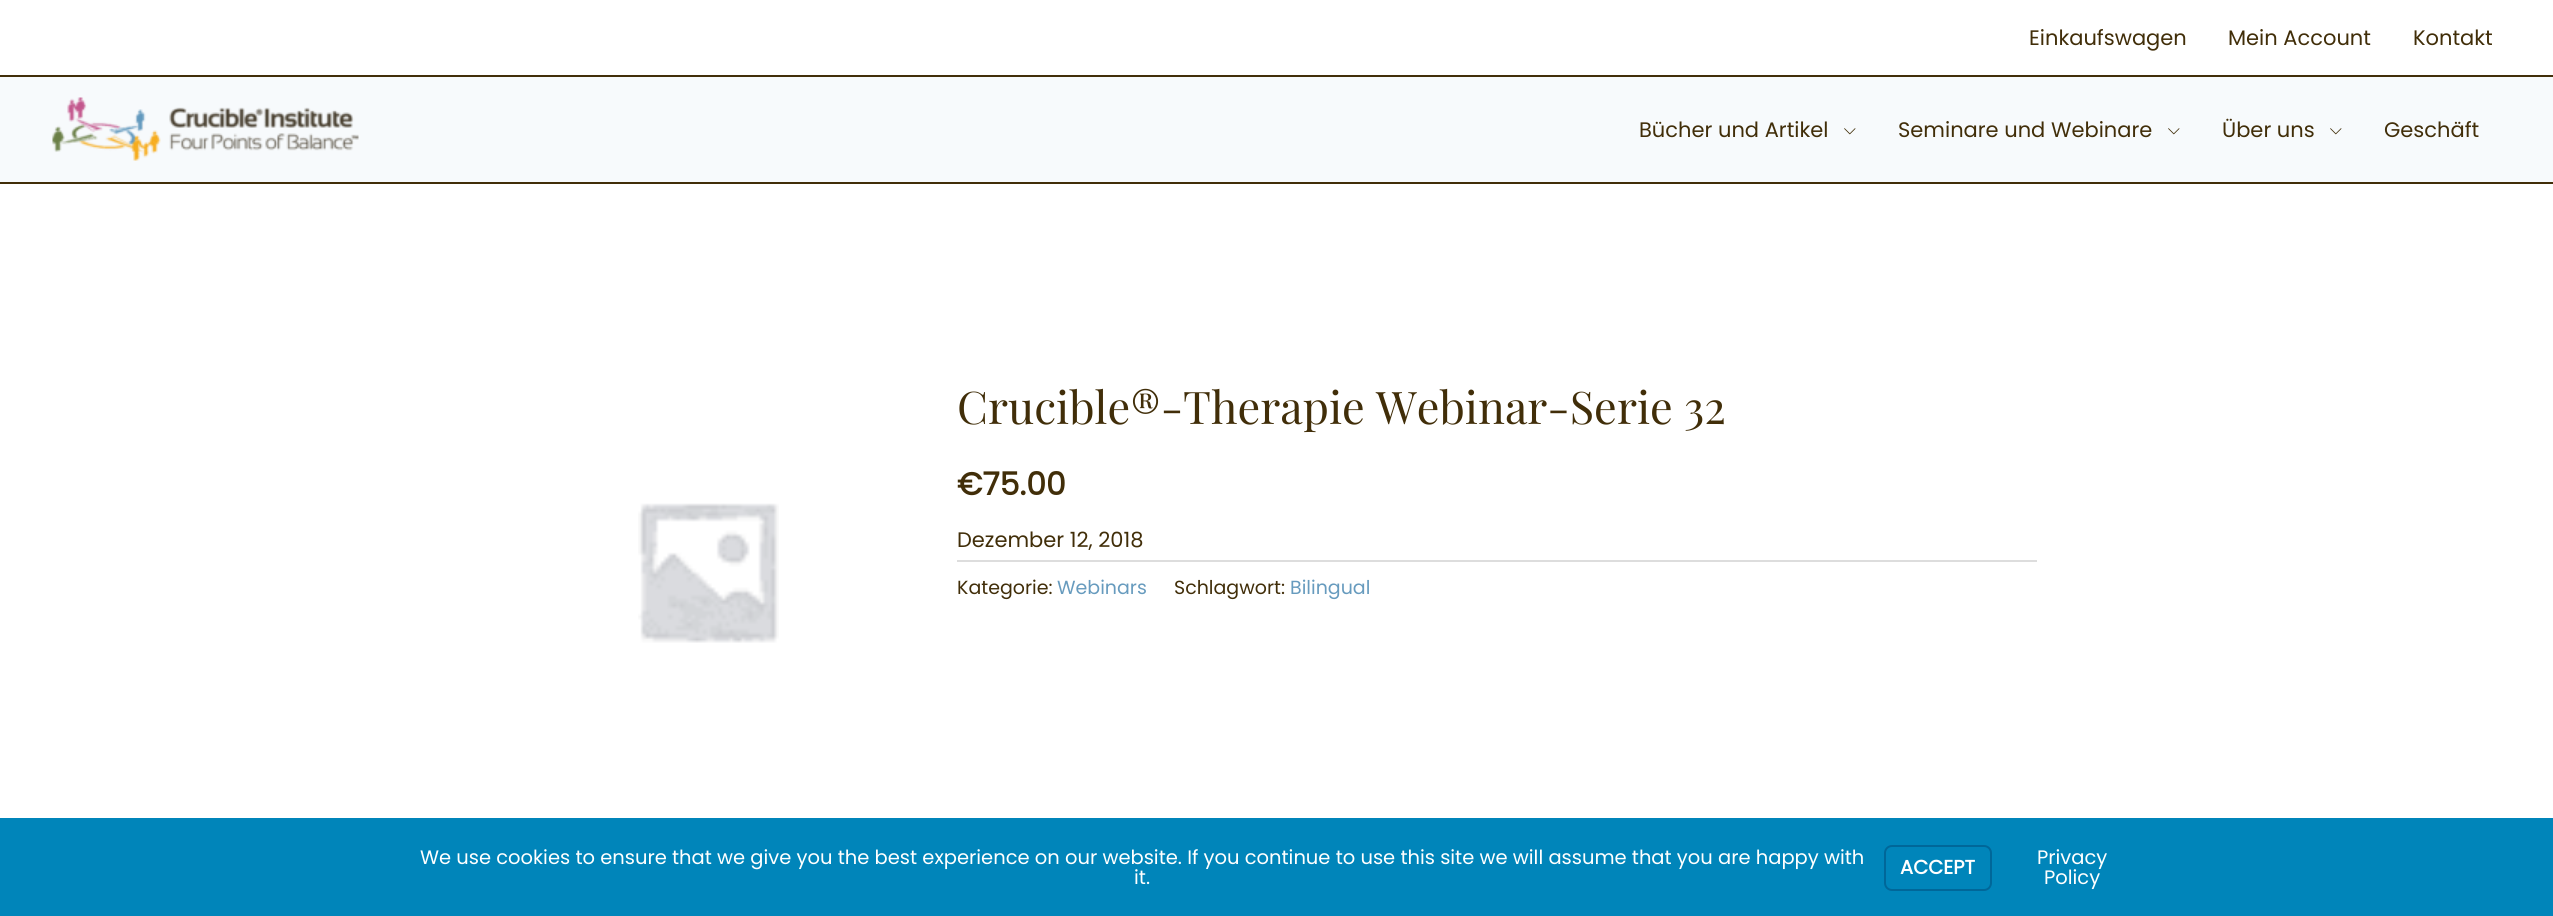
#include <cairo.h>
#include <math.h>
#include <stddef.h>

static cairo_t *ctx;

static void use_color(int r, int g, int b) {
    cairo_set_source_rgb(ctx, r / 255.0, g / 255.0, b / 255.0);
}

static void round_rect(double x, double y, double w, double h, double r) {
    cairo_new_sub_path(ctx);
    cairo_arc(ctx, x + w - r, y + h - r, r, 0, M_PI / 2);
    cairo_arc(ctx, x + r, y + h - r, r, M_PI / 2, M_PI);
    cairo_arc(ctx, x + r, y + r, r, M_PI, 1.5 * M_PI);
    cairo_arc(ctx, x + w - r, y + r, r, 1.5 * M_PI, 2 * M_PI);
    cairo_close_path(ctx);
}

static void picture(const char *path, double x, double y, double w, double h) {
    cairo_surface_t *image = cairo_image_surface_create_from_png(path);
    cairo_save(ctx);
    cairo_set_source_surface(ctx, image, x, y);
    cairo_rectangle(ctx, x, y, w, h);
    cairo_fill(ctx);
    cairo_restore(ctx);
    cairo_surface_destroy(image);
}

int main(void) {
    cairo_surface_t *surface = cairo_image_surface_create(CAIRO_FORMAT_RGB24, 2553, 916);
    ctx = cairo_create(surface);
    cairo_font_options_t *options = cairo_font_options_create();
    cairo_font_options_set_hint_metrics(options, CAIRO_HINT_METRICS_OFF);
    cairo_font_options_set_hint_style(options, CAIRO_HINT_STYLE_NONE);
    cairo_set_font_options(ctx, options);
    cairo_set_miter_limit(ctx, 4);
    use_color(255, 255, 255);
    cairo_paint(ctx);
    use_color(65, 46, 9);
    cairo_rectangle(ctx, 0, 75, 2553, 2);
    cairo_fill(ctx);
    cairo_select_font_face(ctx, "Poppins", CAIRO_FONT_SLANT_NORMAL, CAIRO_FONT_WEIGHT_NORMAL);
    cairo_set_font_size(ctx, 21);
    cairo_move_to(ctx, 2029, 45);
    cairo_show_text(ctx, "Einkaufswagen");
    cairo_move_to(ctx, 2228, 45);
    cairo_show_text(ctx, "Mein Account");
    cairo_move_to(ctx, 2413, 45);
    cairo_show_text(ctx, "Kontakt");
    use_color(247, 250, 252);
    cairo_rectangle(ctx, 0, 77, 2553, 105);
    cairo_fill(ctx);
    use_color(65, 46, 8);
    cairo_rectangle(ctx, 0, 182, 2553, 2);
    cairo_fill(ctx);
    picture("img1.png", 52, 97, 307, 64);
    use_color(65, 46, 9);
    cairo_move_to(ctx, 1639, 137);
    cairo_show_text(ctx, "Bücher und Artikel");
    picture("img2.png", 1844, 128, 12, 7);
    cairo_move_to(ctx, 1898, 137);
    cairo_show_text(ctx, "Seminare und Webinare");
    picture("img2.png", 2168, 128, 12, 7);
    cairo_move_to(ctx, 2222, 137);
    cairo_show_text(ctx, "Über uns");
    picture("img2.png", 2330, 128, 12, 7);
    cairo_move_to(ctx, 2384, 137);
    cairo_show_text(ctx, "Geschäft");
    picture("img3.png", 638, 503, 141, 140);
    cairo_select_font_face(ctx, "Playfair Display", CAIRO_FONT_SLANT_NORMAL, CAIRO_FONT_WEIGHT_NORMAL);
    cairo_set_font_size(ctx, 45);
    cairo_move_to(ctx, 957, 424);
    cairo_show_text(ctx, "Crucible®-Therapie Webinar-Serie 32");
    cairo_select_font_face(ctx, "Poppins", CAIRO_FONT_SLANT_NORMAL, CAIRO_FONT_WEIGHT_BOLD);
    cairo_set_font_size(ctx, 31.5);
    cairo_move_to(ctx, 957, 495);
    cairo_show_text(ctx, "€75.00");
    cairo_select_font_face(ctx, "Poppins", CAIRO_FONT_SLANT_NORMAL, CAIRO_FONT_WEIGHT_NORMAL);
    cairo_set_font_size(ctx, 21);
    cairo_move_to(ctx, 957, 547);
    cairo_show_text(ctx, "Dezember 12, 2018");
    use_color(221, 221, 221);
    cairo_rectangle(ctx, 957, 560, 1080, 2);
    cairo_fill(ctx);
    cairo_set_font_size(ctx, 19);
    use_color(65, 46, 9);
    cairo_move_to(ctx, 957, 594);
    cairo_show_text(ctx, "Kategorie:");
    use_color(103, 155, 190);
    cairo_move_to(ctx, 1057, 594);
    cairo_show_text(ctx, "Webinars");
    use_color(65, 46, 9);
    cairo_move_to(ctx, 1174, 594);
    cairo_show_text(ctx, "Schlagwort:");
    use_color(103, 155, 190);
    cairo_move_to(ctx, 1290, 594);
    cairo_show_text(ctx, "Bilingual");
    use_color(0, 133, 186);
    cairo_rectangle(ctx, 0, 818, 2553, 98);
    cairo_fill(ctx);
    cairo_set_font_size(ctx, 19.5);
    use_color(255, 255, 255);
    cairo_move_to(ctx, 420, 864);
    cairo_show_text(ctx, "We use cookies to ensure that we give you the best experience on our website. If you continue to use this site we will assume that you are happy with");
    cairo_move_to(ctx, 1134, 884);
    cairo_show_text(ctx, "it.");
    round_rect(1885, 846, 106, 44, 7);
    use_color(0, 103, 153);
    cairo_stroke(ctx);
    cairo_select_font_face(ctx, "Poppins", CAIRO_FONT_SLANT_NORMAL, CAIRO_FONT_WEIGHT_BOLD);
    use_color(255, 255, 255);
    cairo_move_to(ctx, 1900, 874);
    cairo_show_text(ctx, "ACCEPT");
    cairo_select_font_face(ctx, "Poppins", CAIRO_FONT_SLANT_NORMAL, CAIRO_FONT_WEIGHT_NORMAL);
    cairo_move_to(ctx, 2037, 864);
    cairo_show_text(ctx, "Privacy");
    cairo_move_to(ctx, 2044, 884);
    cairo_show_text(ctx, "Policy");
    cairo_surface_write_to_png(surface, "result.png");
    cairo_font_options_destroy(options);
    cairo_destroy(ctx);
    cairo_surface_destroy(surface);
    return 0;
}
